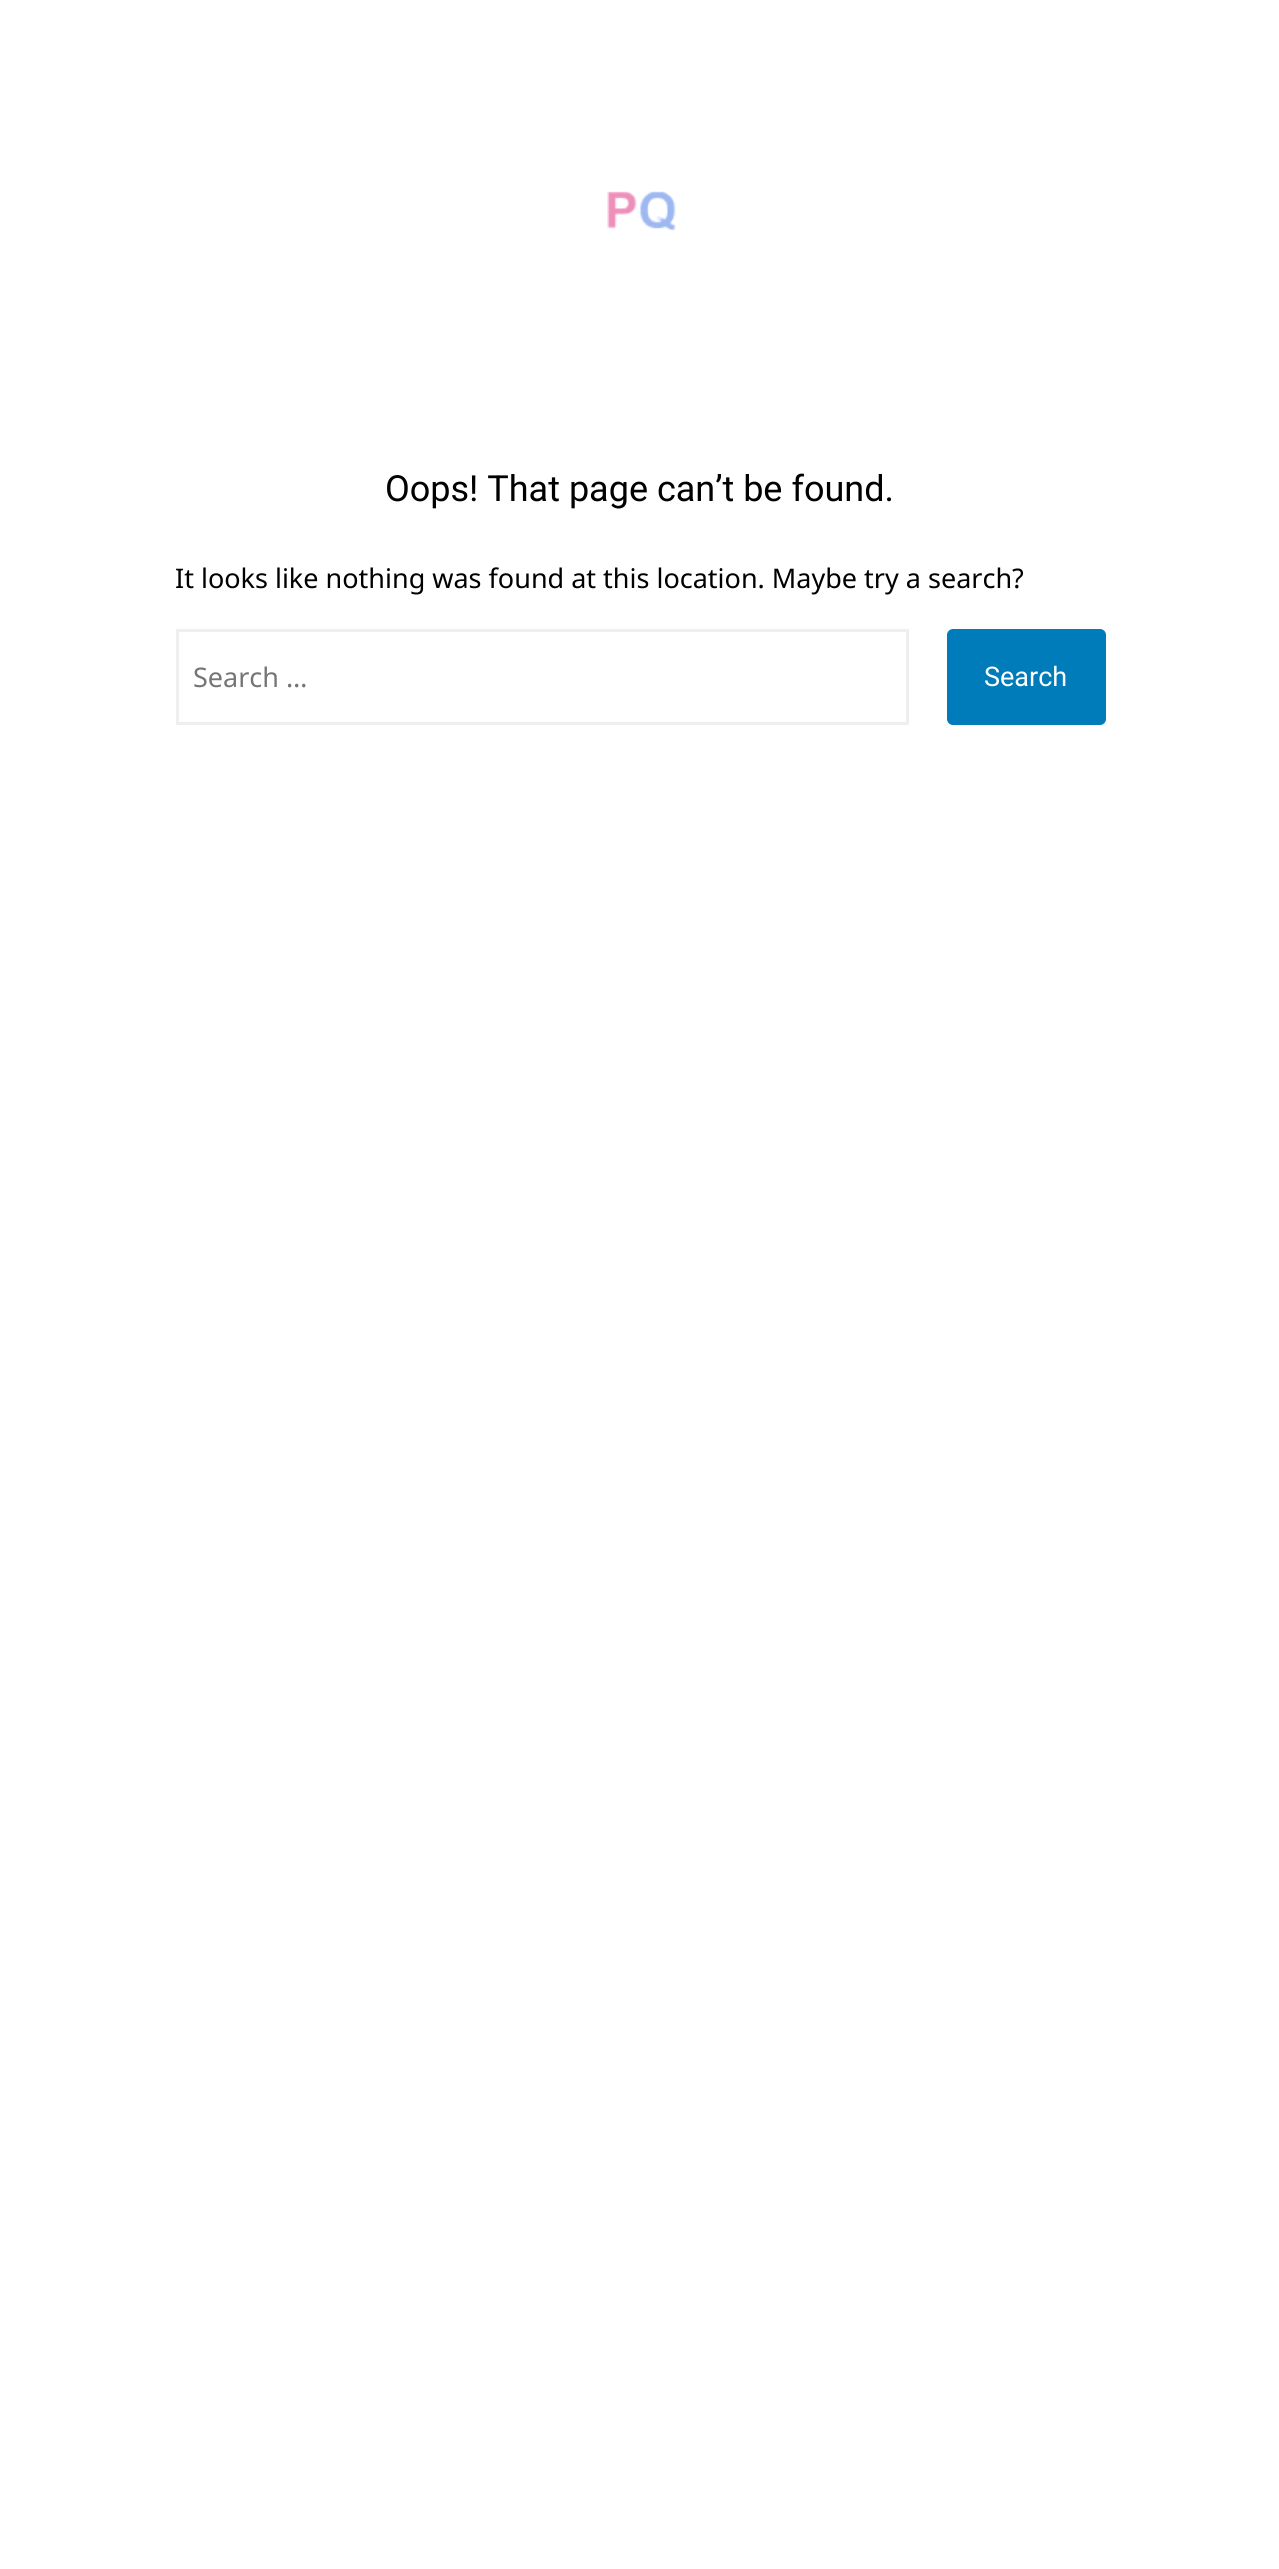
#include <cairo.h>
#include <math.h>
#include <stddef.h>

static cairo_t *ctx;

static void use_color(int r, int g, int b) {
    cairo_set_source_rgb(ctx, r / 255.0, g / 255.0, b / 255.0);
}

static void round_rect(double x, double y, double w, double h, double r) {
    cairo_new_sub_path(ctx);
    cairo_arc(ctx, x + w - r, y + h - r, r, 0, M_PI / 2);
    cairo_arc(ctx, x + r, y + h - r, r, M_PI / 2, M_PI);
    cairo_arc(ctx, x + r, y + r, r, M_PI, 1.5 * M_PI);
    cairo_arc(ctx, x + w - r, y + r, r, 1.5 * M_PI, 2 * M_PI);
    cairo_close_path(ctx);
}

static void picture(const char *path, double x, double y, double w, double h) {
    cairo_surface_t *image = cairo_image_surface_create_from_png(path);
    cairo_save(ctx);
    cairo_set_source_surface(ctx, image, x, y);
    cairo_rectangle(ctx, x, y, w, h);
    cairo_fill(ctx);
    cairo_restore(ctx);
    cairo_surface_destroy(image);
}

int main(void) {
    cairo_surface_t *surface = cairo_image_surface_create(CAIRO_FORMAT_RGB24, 1279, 2569);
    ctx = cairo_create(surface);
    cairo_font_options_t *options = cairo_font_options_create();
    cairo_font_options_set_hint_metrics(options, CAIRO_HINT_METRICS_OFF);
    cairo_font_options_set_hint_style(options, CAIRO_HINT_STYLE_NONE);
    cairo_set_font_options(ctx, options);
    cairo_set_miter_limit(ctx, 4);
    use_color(255, 255, 255);
    cairo_paint(ctx);
    picture("img1.png", 607, 191, 69, 40);
    cairo_select_font_face(ctx, "Roboto", CAIRO_FONT_SLANT_NORMAL, CAIRO_FONT_WEIGHT_NORMAL);
    cairo_set_font_size(ctx, 36);
    use_color(0, 0, 0);
    cairo_move_to(ctx, 385, 501);
    cairo_show_text(ctx, "Oops! That page can’t be found.");
    cairo_select_font_face(ctx, "Noto Sans", CAIRO_FONT_SLANT_NORMAL, CAIRO_FONT_WEIGHT_NORMAL);
    cairo_set_font_size(ctx, 27);
    cairo_move_to(ctx, 175, 588);
    cairo_show_text(ctx, "It looks like nothing was found at this location. Maybe try a search?");
    cairo_rectangle(ctx, 177.5, 630.5, 730, 93);
    use_color(239, 239, 239);
    cairo_set_line_width(ctx, 3);
    cairo_stroke(ctx);
    use_color(117, 117, 117);
    cairo_move_to(ctx, 193, 687);
    cairo_show_text(ctx, "Search …");
    use_color(0, 124, 186);
    round_rect(947, 629, 159, 96, 6);
    cairo_fill(ctx);
    cairo_select_font_face(ctx, "Roboto", CAIRO_FONT_SLANT_NORMAL, CAIRO_FONT_WEIGHT_NORMAL);
    use_color(255, 255, 255);
    cairo_move_to(ctx, 984, 686);
    cairo_show_text(ctx, "Search");
    cairo_surface_write_to_png(surface, "result.png");
    cairo_font_options_destroy(options);
    cairo_destroy(ctx);
    cairo_surface_destroy(surface);
    return 0;
}
